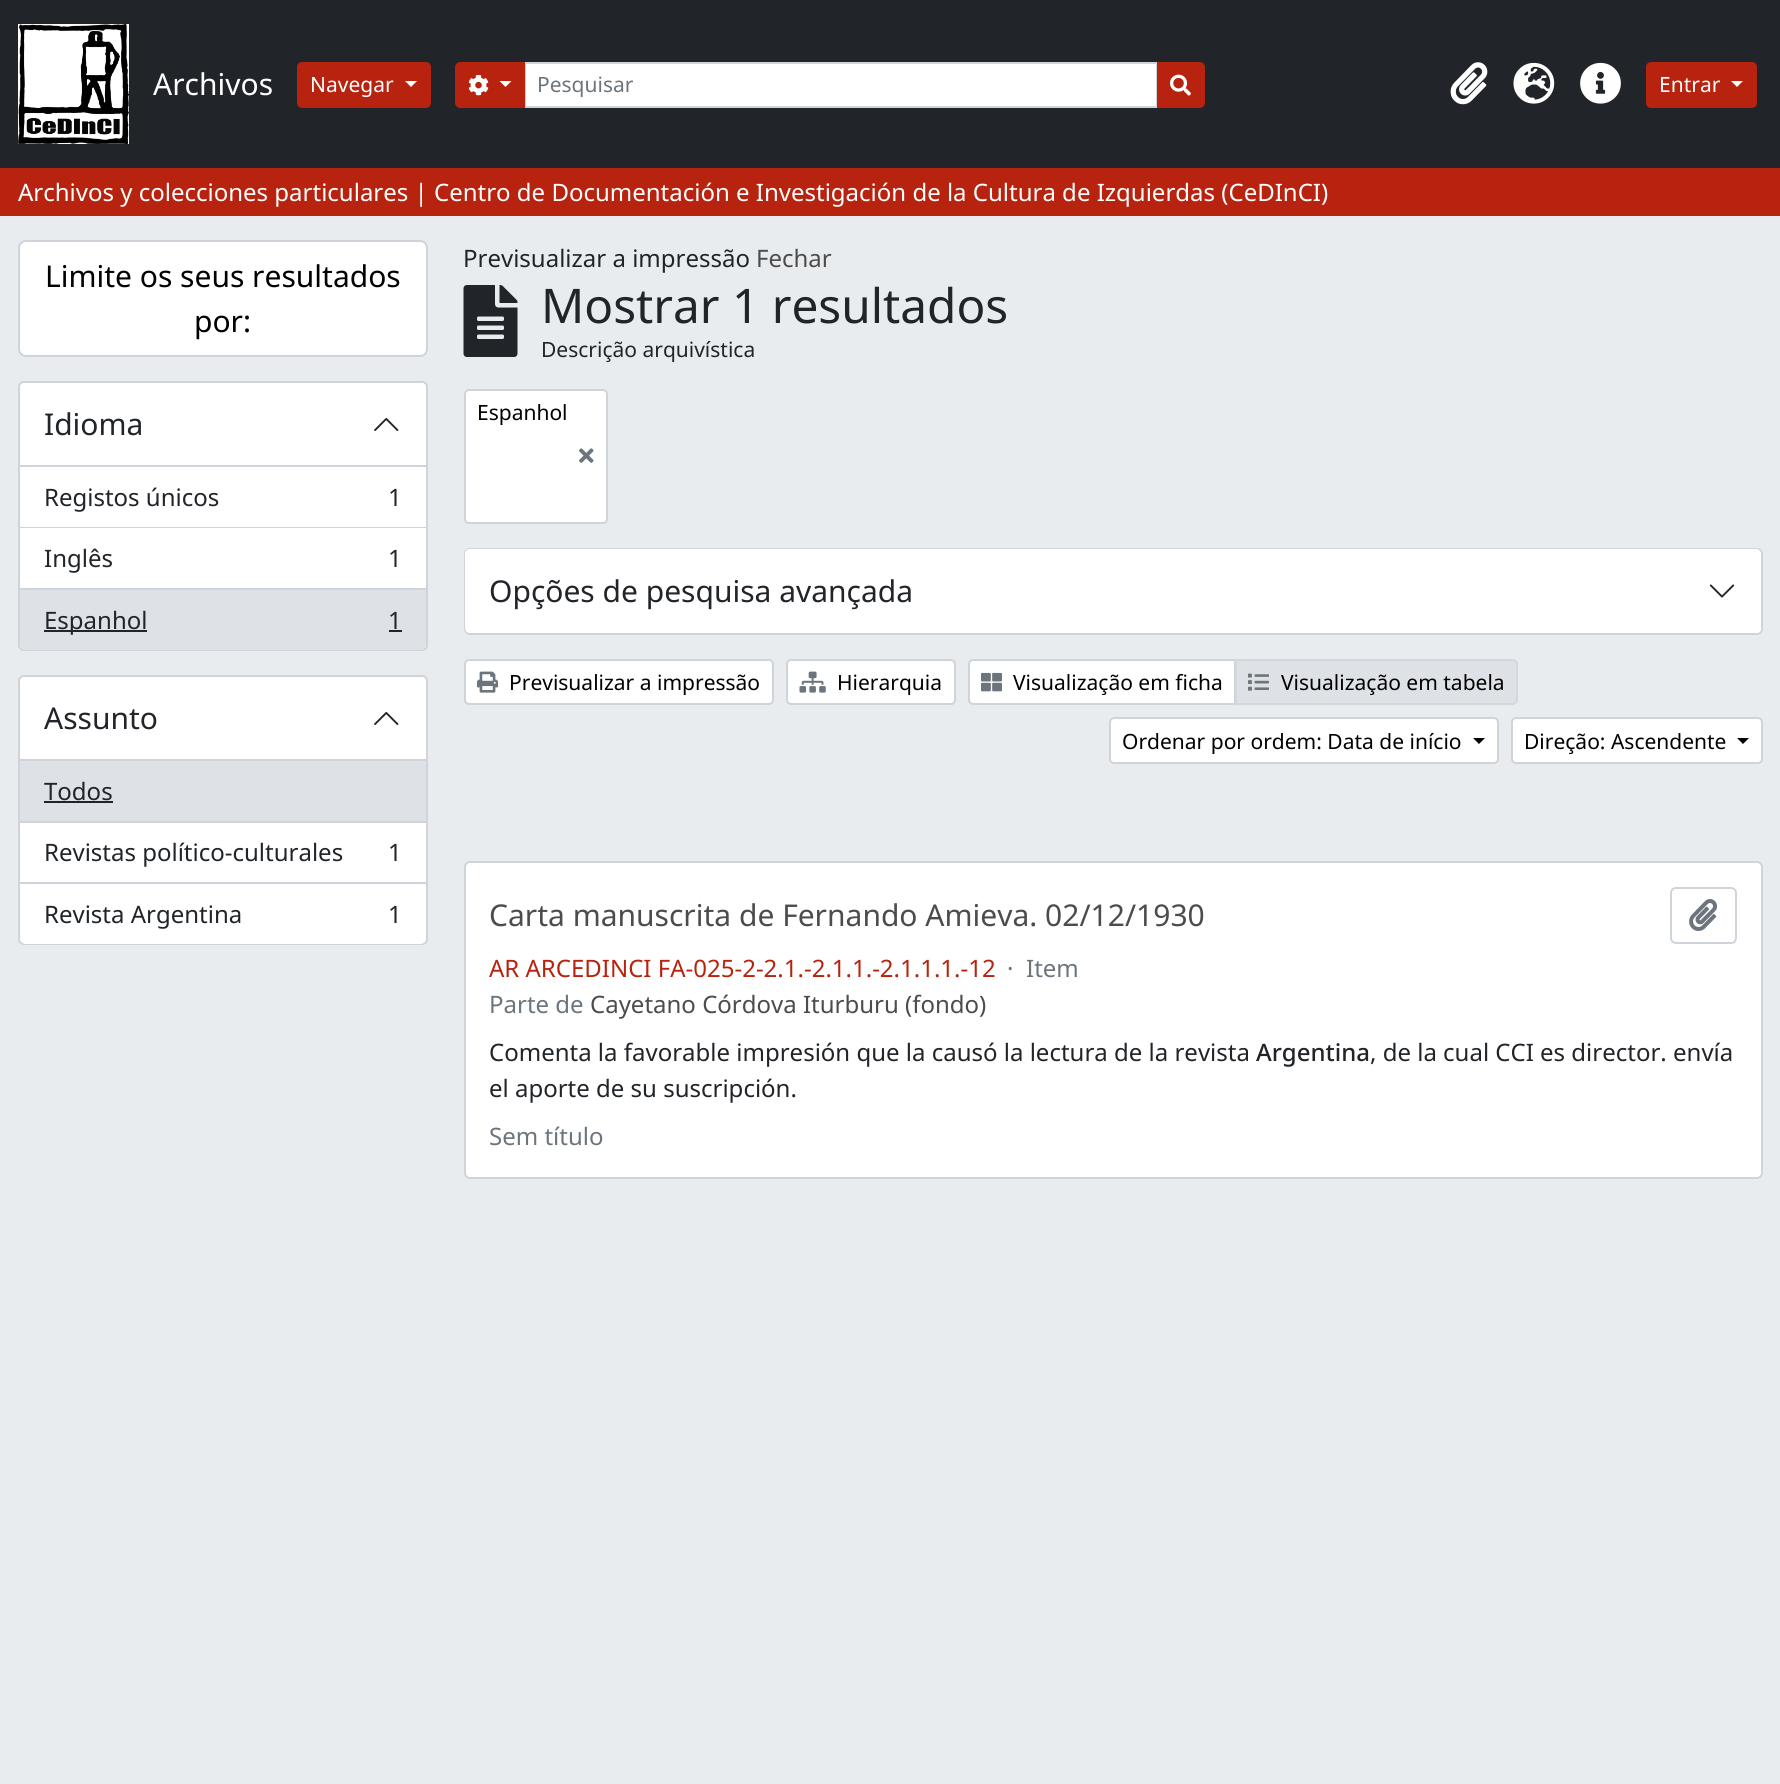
#include <cairo.h>
#include <math.h>
#include <stddef.h>

static cairo_t *ctx;

static void use_color(int r, int g, int b) {
    cairo_set_source_rgb(ctx, r / 255.0, g / 255.0, b / 255.0);
}

static void round_rect(double x, double y, double w, double h, double r) {
    cairo_new_sub_path(ctx);
    cairo_arc(ctx, x + w - r, y + h - r, r, 0, M_PI / 2);
    cairo_arc(ctx, x + r, y + h - r, r, M_PI / 2, M_PI);
    cairo_arc(ctx, x + r, y + r, r, M_PI, 1.5 * M_PI);
    cairo_arc(ctx, x + w - r, y + r, r, 1.5 * M_PI, 2 * M_PI);
    cairo_close_path(ctx);
}

static void picture(const char *path, double x, double y, double w, double h) {
    cairo_surface_t *image = cairo_image_surface_create_from_png(path);
    cairo_save(ctx);
    cairo_set_source_surface(ctx, image, x, y);
    cairo_rectangle(ctx, x, y, w, h);
    cairo_fill(ctx);
    cairo_restore(ctx);
    cairo_surface_destroy(image);
}

int main(void) {
    cairo_surface_t *surface = cairo_image_surface_create(CAIRO_FORMAT_RGB24, 1780, 1784);
    ctx = cairo_create(surface);
    cairo_font_options_t *options = cairo_font_options_create();
    cairo_font_options_set_hint_metrics(options, CAIRO_HINT_METRICS_OFF);
    cairo_font_options_set_hint_style(options, CAIRO_HINT_STYLE_NONE);
    cairo_set_font_options(ctx, options);
    cairo_set_miter_limit(ctx, 4);
    use_color(233, 236, 239);
    cairo_paint(ctx);
    use_color(33, 37, 41);
    cairo_rectangle(ctx, 0, 0, 1780, 168);
    cairo_fill(ctx);
    picture("img1.png", 18, 24, 111, 120);
    cairo_select_font_face(ctx, "Noto Sans", CAIRO_FONT_SLANT_NORMAL, CAIRO_FONT_WEIGHT_NORMAL);
    cairo_set_font_size(ctx, 30);
    use_color(255, 255, 255);
    cairo_move_to(ctx, 153, 95);
    cairo_show_text(ctx, "Archivos");
    use_color(183, 35, 15);
    round_rect(298, 63, 132, 44, 4);
    cairo_fill_preserve(ctx);
    cairo_stroke(ctx);
    cairo_set_font_size(ctx, 21);
    use_color(255, 255, 255);
    cairo_move_to(ctx, 310, 92);
    cairo_show_text(ctx, "Navegar");
    cairo_new_path(ctx);
    cairo_move_to(ctx, 405, 81);
    cairo_line_to(ctx, 417, 81);
    cairo_line_to(ctx, 411, 87);
    cairo_close_path(ctx);
    cairo_fill(ctx);
    cairo_rectangle(ctx, 525, 63, 632, 44);
    cairo_fill_preserve(ctx);
    use_color(206, 212, 218);
    cairo_stroke(ctx);
    use_color(183, 35, 15);
    cairo_new_path(ctx);
    cairo_move_to(ctx, 460, 63);
    cairo_line_to(ctx, 524, 63);
    cairo_line_to(ctx, 524, 107);
    cairo_line_to(ctx, 460, 107);
    cairo_curve_to(ctx, 458, 107, 456, 105, 456, 103);
    cairo_line_to(ctx, 456, 67);
    cairo_curve_to(ctx, 456, 65, 458, 63, 460, 63);
    cairo_close_path(ctx);
    cairo_fill_preserve(ctx);
    cairo_stroke(ctx);
    picture("img2.png", 468, 75, 21, 21);
    use_color(255, 255, 255);
    cairo_new_path(ctx);
    cairo_move_to(ctx, 499.5, 81);
    cairo_line_to(ctx, 511.5, 81);
    cairo_line_to(ctx, 505.5, 87);
    cairo_close_path(ctx);
    cairo_fill(ctx);
    use_color(108, 117, 125);
    cairo_move_to(ctx, 537, 92);
    cairo_show_text(ctx, "Pesquisar");
    use_color(183, 35, 15);
    cairo_new_path(ctx);
    cairo_move_to(ctx, 1158, 63);
    cairo_line_to(ctx, 1200, 63);
    cairo_curve_to(ctx, 1202, 63, 1204, 65, 1204, 67);
    cairo_line_to(ctx, 1204, 103);
    cairo_curve_to(ctx, 1204, 105, 1202, 107, 1200, 107);
    cairo_line_to(ctx, 1158, 107);
    cairo_close_path(ctx);
    cairo_fill_preserve(ctx);
    cairo_stroke(ctx);
    picture("img3.png", 1170, 74, 21, 22);
    picture("img4.png", 1450, 62, 38, 43);
    picture("img5.png", 1513, 62, 42, 42);
    picture("img6.png", 1580, 62, 41, 42);
    round_rect(1647, 63, 109, 44, 4);
    cairo_fill_preserve(ctx);
    cairo_stroke(ctx);
    use_color(255, 255, 255);
    cairo_move_to(ctx, 1659, 92);
    cairo_show_text(ctx, "Entrar");
    cairo_new_path(ctx);
    cairo_move_to(ctx, 1731, 81);
    cairo_line_to(ctx, 1743, 81);
    cairo_line_to(ctx, 1737, 87);
    cairo_close_path(ctx);
    cairo_fill(ctx);
    use_color(183, 35, 15);
    cairo_rectangle(ctx, 0, 168, 1780, 48);
    cairo_fill(ctx);
    cairo_set_font_size(ctx, 24);
    use_color(255, 255, 255);
    cairo_move_to(ctx, 18, 201);
    cairo_show_text(ctx, "Archivos y colecciones particulares | Centro de Documentación e Investigación de la Cultura de Izquierdas (CeDInCI)");
    round_rect(19, 241, 408, 115, 7);
    cairo_fill_preserve(ctx);
    use_color(206, 212, 218);
    cairo_stroke(ctx);
    cairo_set_font_size(ctx, 30);
    use_color(0, 0, 0);
    cairo_move_to(ctx, 45, 287);
    cairo_show_text(ctx, "Limite os seus resultados");
    cairo_move_to(ctx, 194, 332);
    cairo_show_text(ctx, "por:");
    use_color(255, 255, 255);
    round_rect(19, 382, 408, 268, 5);
    cairo_fill_preserve(ctx);
    use_color(206, 212, 218);
    cairo_stroke(ctx);
    use_color(255, 255, 255);
    cairo_new_path(ctx);
    cairo_move_to(ctx, 25, 383);
    cairo_line_to(ctx, 421, 383);
    cairo_curve_to(ctx, 424, 383, 426, 385, 426, 388);
    cairo_line_to(ctx, 426, 467);
    cairo_line_to(ctx, 20, 467);
    cairo_line_to(ctx, 20, 388);
    cairo_curve_to(ctx, 20, 385, 22, 383, 25, 383);
    cairo_close_path(ctx);
    cairo_fill(ctx);
    use_color(206, 212, 218);
    cairo_rectangle(ctx, 20, 465, 406, 2);
    cairo_fill(ctx);
    use_color(33, 37, 41);
    cairo_move_to(ctx, 44, 435);
    cairo_show_text(ctx, "Idioma");
    picture("img7.png", 374, 418, 25, 13);
    use_color(206, 212, 218);
    cairo_rectangle(ctx, 20, 527, 406, 1);
    cairo_fill(ctx);
    cairo_set_font_size(ctx, 24);
    use_color(33, 37, 41);
    cairo_move_to(ctx, 44, 506);
    cairo_show_text(ctx, "Registos únicos");
    cairo_move_to(ctx, 388, 506);
    cairo_show_text(ctx, "1");
    use_color(206, 212, 218);
    cairo_rectangle(ctx, 20, 588, 406, 2);
    cairo_fill(ctx);
    use_color(33, 37, 41);
    cairo_move_to(ctx, 44, 567);
    cairo_show_text(ctx, "Inglês");
    cairo_move_to(ctx, 388, 567);
    cairo_show_text(ctx, "1");
    use_color(222, 226, 230);
    cairo_new_path(ctx);
    cairo_move_to(ctx, 20, 590);
    cairo_line_to(ctx, 426, 590);
    cairo_line_to(ctx, 426, 644);
    cairo_curve_to(ctx, 426, 647.5, 423.5, 650, 420, 650);
    cairo_line_to(ctx, 26, 650);
    cairo_curve_to(ctx, 22.5, 650, 20, 647.5, 20, 644);
    cairo_close_path(ctx);
    cairo_fill(ctx);
    use_color(33, 37, 41);
    cairo_rectangle(ctx, 44, 630, 103, 2);
    cairo_fill(ctx);
    cairo_move_to(ctx, 44, 629);
    cairo_show_text(ctx, "Espanhol");
    cairo_move_to(ctx, 388, 629);
    cairo_show_text(ctx, "1");
    cairo_rectangle(ctx, 389, 630, 13, 2);
    cairo_fill(ctx);
    use_color(255, 255, 255);
    round_rect(19, 676, 408, 268, 5);
    cairo_fill_preserve(ctx);
    use_color(206, 212, 218);
    cairo_stroke(ctx);
    use_color(255, 255, 255);
    cairo_new_path(ctx);
    cairo_move_to(ctx, 25, 677);
    cairo_line_to(ctx, 421, 677);
    cairo_curve_to(ctx, 424, 677, 426, 679, 426, 682);
    cairo_line_to(ctx, 426, 761);
    cairo_line_to(ctx, 20, 761);
    cairo_line_to(ctx, 20, 682);
    cairo_curve_to(ctx, 20, 679, 22, 677, 25, 677);
    cairo_close_path(ctx);
    cairo_fill(ctx);
    use_color(206, 212, 218);
    cairo_rectangle(ctx, 20, 759, 406, 2);
    cairo_fill(ctx);
    cairo_set_font_size(ctx, 30);
    use_color(33, 37, 41);
    cairo_move_to(ctx, 44, 729);
    cairo_show_text(ctx, "Assunto");
    picture("img7.png", 374, 712, 25, 13);
    use_color(222, 226, 230);
    cairo_rectangle(ctx, 20, 761, 406, 60);
    cairo_fill(ctx);
    use_color(206, 212, 218);
    cairo_rectangle(ctx, 20, 821, 406, 2);
    cairo_fill(ctx);
    cairo_set_font_size(ctx, 24);
    use_color(33, 37, 41);
    cairo_move_to(ctx, 44, 800);
    cairo_show_text(ctx, "Todos");
    cairo_rectangle(ctx, 44, 801, 69, 2);
    cairo_fill(ctx);
    use_color(206, 212, 218);
    cairo_rectangle(ctx, 20, 882, 406, 2);
    cairo_fill(ctx);
    use_color(33, 37, 41);
    cairo_move_to(ctx, 44, 861);
    cairo_show_text(ctx, "Revistas político-culturales");
    cairo_move_to(ctx, 388, 861);
    cairo_show_text(ctx, "1");
    use_color(255, 255, 255);
    cairo_new_path(ctx);
    cairo_move_to(ctx, 20, 884);
    cairo_line_to(ctx, 426, 884);
    cairo_line_to(ctx, 426, 938);
    cairo_curve_to(ctx, 426, 941.5, 423.5, 944, 420, 944);
    cairo_line_to(ctx, 26, 944);
    cairo_curve_to(ctx, 22.5, 944, 20, 941.5, 20, 938);
    cairo_close_path(ctx);
    cairo_fill(ctx);
    use_color(33, 37, 41);
    cairo_move_to(ctx, 44, 923);
    cairo_show_text(ctx, "Revista Argentina");
    cairo_move_to(ctx, 388, 923);
    cairo_show_text(ctx, "1");
    cairo_move_to(ctx, 463, 267);
    cairo_show_text(ctx, "Previsualizar a impressão");
    use_color(76, 76, 76);
    cairo_move_to(ctx, 756, 267);
    cairo_show_text(ctx, "Fechar");
    picture("img8.png", 463, 285, 55, 72);
    cairo_set_font_size(ctx, 47.75);
    use_color(33, 37, 41);
    cairo_move_to(ctx, 541, 323);
    cairo_show_text(ctx, "Mostrar 1 resultados");
    cairo_set_font_size(ctx, 21);
    cairo_move_to(ctx, 541, 357);
    cairo_show_text(ctx, "Descrição arquivística");
    use_color(255, 255, 255);
    round_rect(465, 390, 142, 133, 4);
    cairo_fill_preserve(ctx);
    use_color(206, 212, 218);
    cairo_stroke(ctx);
    use_color(0, 0, 0);
    cairo_move_to(ctx, 477, 420);
    cairo_show_text(ctx, "Espanhol");
    picture("img9.png", 579, 448, 15, 15);
    use_color(255, 255, 255);
    round_rect(465, 549, 1297, 85, 5);
    cairo_fill_preserve(ctx);
    use_color(206, 212, 218);
    cairo_stroke(ctx);
    use_color(255, 255, 255);
    round_rect(465, 549, 1296, 84, 5);
    cairo_fill(ctx);
    cairo_set_font_size(ctx, 30);
    use_color(33, 37, 41);
    cairo_move_to(ctx, 489, 602);
    cairo_show_text(ctx, "Opções de pesquisa avançada");
    picture("img10.png", 1709, 584, 26, 14);
    use_color(255, 255, 255);
    round_rect(465, 660, 308, 44, 4);
    cairo_fill_preserve(ctx);
    use_color(206, 212, 218);
    cairo_stroke(ctx);
    picture("img11.png", 477, 671, 21, 22);
    cairo_set_font_size(ctx, 21);
    use_color(0, 0, 0);
    cairo_move_to(ctx, 509, 690);
    cairo_show_text(ctx, "Previsualizar a impressão");
    use_color(255, 255, 255);
    round_rect(787, 660, 168, 44, 4);
    cairo_fill_preserve(ctx);
    use_color(206, 212, 218);
    cairo_stroke(ctx);
    picture("img12.png", 799, 671, 27, 22);
    use_color(0, 0, 0);
    cairo_move_to(ctx, 837, 690);
    cairo_show_text(ctx, "Hierarquia");
    use_color(255, 255, 255);
    cairo_new_path(ctx);
    cairo_move_to(ctx, 973, 660);
    cairo_line_to(ctx, 1235, 660);
    cairo_line_to(ctx, 1235, 704);
    cairo_line_to(ctx, 973, 704);
    cairo_curve_to(ctx, 971, 704, 969, 702, 969, 700);
    cairo_line_to(ctx, 969, 664);
    cairo_curve_to(ctx, 969, 662, 971, 660, 973, 660);
    cairo_close_path(ctx);
    cairo_fill_preserve(ctx);
    use_color(206, 212, 218);
    cairo_stroke(ctx);
    picture("img13.png", 981, 672, 21, 20);
    use_color(0, 0, 0);
    cairo_move_to(ctx, 1013, 690);
    cairo_show_text(ctx, "Visualização em ficha");
    use_color(222, 226, 230);
    cairo_new_path(ctx);
    cairo_move_to(ctx, 1236, 660);
    cairo_line_to(ctx, 1513, 660);
    cairo_curve_to(ctx, 1515, 660, 1517, 662, 1517, 664);
    cairo_line_to(ctx, 1517, 700);
    cairo_curve_to(ctx, 1517, 702, 1515, 704, 1513, 704);
    cairo_line_to(ctx, 1236, 704);
    cairo_close_path(ctx);
    cairo_fill_preserve(ctx);
    use_color(211, 216, 222);
    cairo_stroke(ctx);
    picture("img14.png", 1248, 673, 21, 18);
    use_color(0, 0, 0);
    cairo_move_to(ctx, 1281, 690);
    cairo_show_text(ctx, "Visualização em tabela");
    use_color(255, 255, 255);
    round_rect(1110, 718, 388, 45, 4);
    cairo_fill_preserve(ctx);
    use_color(206, 212, 218);
    cairo_stroke(ctx);
    use_color(0, 0, 0);
    cairo_move_to(ctx, 1122, 749);
    cairo_show_text(ctx, "Ordenar por ordem: Data de início");
    cairo_new_path(ctx);
    cairo_move_to(ctx, 1473, 738);
    cairo_line_to(ctx, 1485, 738);
    cairo_line_to(ctx, 1479, 744);
    cairo_close_path(ctx);
    cairo_fill(ctx);
    use_color(255, 255, 255);
    round_rect(1512, 718, 250, 45, 4);
    cairo_fill_preserve(ctx);
    use_color(206, 212, 218);
    cairo_stroke(ctx);
    use_color(0, 0, 0);
    cairo_move_to(ctx, 1524, 749);
    cairo_show_text(ctx, "Direção: Ascendente");
    cairo_new_path(ctx);
    cairo_move_to(ctx, 1737, 738);
    cairo_line_to(ctx, 1749, 738);
    cairo_line_to(ctx, 1743, 744);
    cairo_close_path(ctx);
    cairo_fill(ctx);
    use_color(255, 255, 255);
    round_rect(465, 862, 1297, 316, 5);
    cairo_fill_preserve(ctx);
    use_color(206, 212, 218);
    cairo_stroke(ctx);
    cairo_set_font_size(ctx, 30);
    use_color(76, 76, 76);
    cairo_move_to(ctx, 489, 926);
    cairo_show_text(ctx, "Carta manuscrita de Fernando Amieva. 02/12/1930");
    round_rect(1671, 888, 65, 55, 5);
    use_color(206, 212, 218);
    cairo_stroke(ctx);
    picture("img15.png", 1689, 899, 29, 32);
    cairo_set_font_size(ctx, 24);
    use_color(183, 35, 15);
    cairo_move_to(ctx, 489, 977);
    cairo_show_text(ctx, "AR ARCEDINCI FA-025-2-2.1.-2.1.1.-2.1.1.1.-12");
    use_color(108, 117, 125);
    cairo_move_to(ctx, 1007, 977);
    cairo_show_text(ctx, "·");
    cairo_move_to(ctx, 1026, 977);
    cairo_show_text(ctx, "Item");
    cairo_move_to(ctx, 489, 1013);
    cairo_show_text(ctx, "Parte de");
    use_color(76, 76, 76);
    cairo_move_to(ctx, 590, 1013);
    cairo_show_text(ctx, "Cayetano Córdova Iturburu (fondo)");
    use_color(33, 37, 41);
    cairo_move_to(ctx, 489, 1061);
    cairo_show_text(ctx, "Comenta la favorable impresión que la causó la lectura de la revista");
    cairo_select_font_face(ctx, "Noto Sans Medium", CAIRO_FONT_SLANT_NORMAL, CAIRO_FONT_WEIGHT_NORMAL);
    cairo_move_to(ctx, 1256, 1061);
    cairo_show_text(ctx, "Argentina");
    cairo_select_font_face(ctx, "Noto Sans", CAIRO_FONT_SLANT_NORMAL, CAIRO_FONT_WEIGHT_NORMAL);
    cairo_move_to(ctx, 1370, 1061);
    cairo_show_text(ctx, ", de la cual CCI es director. envía");
    cairo_move_to(ctx, 489, 1097);
    cairo_show_text(ctx, "el aporte de su suscripción.");
    use_color(108, 117, 125);
    cairo_move_to(ctx, 489, 1145);
    cairo_show_text(ctx, "Sem título");
    cairo_surface_write_to_png(surface, "result.png");
    cairo_font_options_destroy(options);
    cairo_destroy(ctx);
    cairo_surface_destroy(surface);
    return 0;
}
